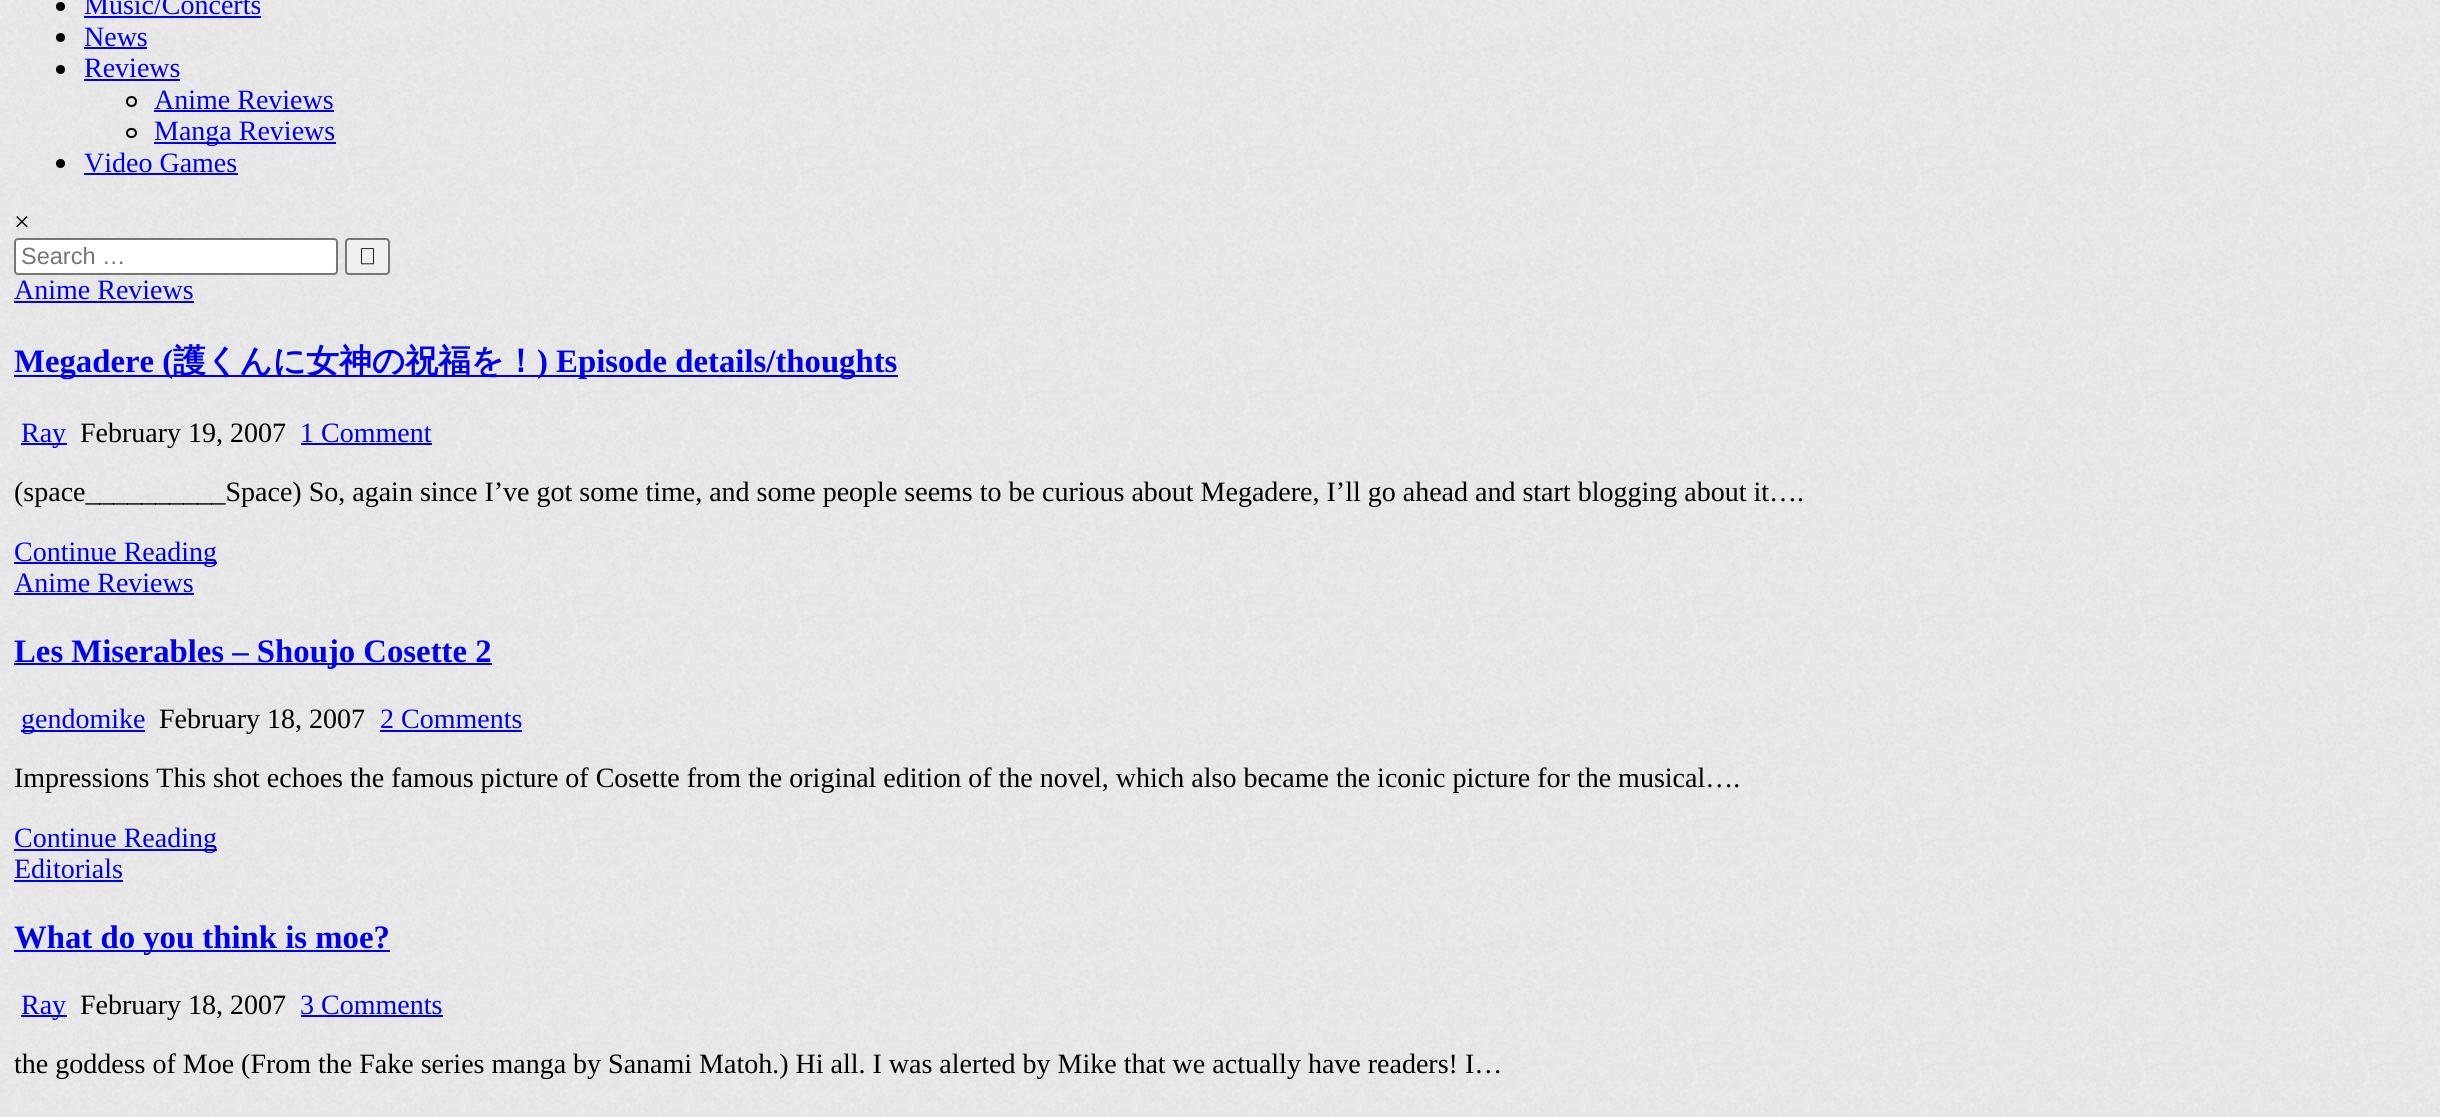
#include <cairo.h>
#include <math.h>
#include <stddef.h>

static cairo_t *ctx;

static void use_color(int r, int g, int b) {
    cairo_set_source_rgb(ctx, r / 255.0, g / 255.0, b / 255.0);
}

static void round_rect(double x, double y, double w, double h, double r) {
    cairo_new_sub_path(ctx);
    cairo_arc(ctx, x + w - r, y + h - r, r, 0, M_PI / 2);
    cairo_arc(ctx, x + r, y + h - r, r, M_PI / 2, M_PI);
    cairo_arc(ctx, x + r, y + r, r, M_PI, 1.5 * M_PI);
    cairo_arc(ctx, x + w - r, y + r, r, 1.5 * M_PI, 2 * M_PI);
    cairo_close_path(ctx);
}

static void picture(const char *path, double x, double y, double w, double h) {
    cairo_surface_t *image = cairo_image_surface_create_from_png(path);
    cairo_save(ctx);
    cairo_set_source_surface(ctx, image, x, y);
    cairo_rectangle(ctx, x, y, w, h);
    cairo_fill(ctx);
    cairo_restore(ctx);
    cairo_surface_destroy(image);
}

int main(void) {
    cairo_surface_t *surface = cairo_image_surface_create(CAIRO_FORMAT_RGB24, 2440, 1117);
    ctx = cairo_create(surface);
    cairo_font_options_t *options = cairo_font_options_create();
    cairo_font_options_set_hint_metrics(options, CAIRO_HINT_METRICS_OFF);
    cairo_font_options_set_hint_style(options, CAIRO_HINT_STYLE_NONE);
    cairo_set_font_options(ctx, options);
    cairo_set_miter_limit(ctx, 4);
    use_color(255, 255, 255);
    cairo_paint(ctx);
    picture("img1.png", 0, 0, 2440, 1117);
    use_color(0, 0, 0);
    cairo_arc(ctx, 60.5, 6.5, 4.5, 0, 2 * M_PI);
    cairo_fill(ctx);
    cairo_select_font_face(ctx, "Liberation Serif", CAIRO_FONT_SLANT_NORMAL, CAIRO_FONT_WEIGHT_NORMAL);
    cairo_set_font_size(ctx, 28);
    use_color(0, 0, 238);
    cairo_move_to(ctx, 84, 14);
    cairo_show_text(ctx, "Music/Concerts");
    cairo_rectangle(ctx, 84, 16, 177, 2);
    cairo_fill(ctx);
    use_color(0, 0, 0);
    cairo_arc(ctx, 60.5, 37.5, 4.5, 0, 2 * M_PI);
    cairo_fill(ctx);
    use_color(0, 0, 238);
    cairo_move_to(ctx, 84, 46);
    cairo_show_text(ctx, "News");
    cairo_rectangle(ctx, 84, 47, 63, 2);
    cairo_fill(ctx);
    use_color(0, 0, 0);
    cairo_arc(ctx, 60.5, 69.5, 4.5, 0, 2 * M_PI);
    cairo_fill(ctx);
    use_color(0, 0, 238);
    cairo_move_to(ctx, 84, 77);
    cairo_show_text(ctx, "Reviews");
    cairo_rectangle(ctx, 84, 79, 96, 2);
    cairo_fill(ctx);
    cairo_arc(ctx, 131.5, 101.5, 4.5, 0, 2 * M_PI);
    use_color(0, 0, 0);
    cairo_stroke(ctx);
    use_color(0, 0, 238);
    cairo_move_to(ctx, 154, 109);
    cairo_show_text(ctx, "Anime Reviews");
    cairo_rectangle(ctx, 154, 110, 180, 2);
    cairo_fill(ctx);
    round_rect(127, 129, 9, 8, 4);
    use_color(0, 0, 0);
    cairo_stroke(ctx);
    use_color(0, 0, 238);
    cairo_rectangle(ctx, 154, 142, 182, 2);
    cairo_fill(ctx);
    cairo_move_to(ctx, 154, 140);
    cairo_show_text(ctx, "Manga Reviews");
    use_color(0, 0, 0);
    cairo_new_path(ctx);
    cairo_arc(ctx, 60.5, 163.5, 4.5, 0, 2 * M_PI);
    cairo_fill(ctx);
    use_color(0, 0, 238);
    cairo_move_to(ctx, 84, 172);
    cairo_show_text(ctx, "Video Games");
    cairo_rectangle(ctx, 84, 173, 154, 2);
    cairo_fill(ctx);
    use_color(0, 0, 0);
    cairo_move_to(ctx, 14, 231);
    cairo_show_text(ctx, "×");
    use_color(255, 255, 255);
    round_rect(15, 239, 322, 35, 3);
    cairo_fill_preserve(ctx);
    use_color(118, 118, 118);
    cairo_stroke(ctx);
    cairo_select_font_face(ctx, "Liberation Sans", CAIRO_FONT_SLANT_NORMAL, CAIRO_FONT_WEIGHT_NORMAL);
    cairo_set_font_size(ctx, 23.5);
    use_color(117, 117, 117);
    cairo_move_to(ctx, 21, 264);
    cairo_show_text(ctx, "Search …");
    use_color(239, 239, 239);
    round_rect(346, 239, 43, 35, 3);
    cairo_fill_preserve(ctx);
    use_color(118, 118, 118);
    cairo_stroke(ctx);
    picture("img2.png", 361, 248, 13, 17);
    cairo_select_font_face(ctx, "Liberation Serif", CAIRO_FONT_SLANT_NORMAL, CAIRO_FONT_WEIGHT_NORMAL);
    cairo_set_font_size(ctx, 28);
    use_color(0, 0, 238);
    cairo_move_to(ctx, 14, 299);
    cairo_show_text(ctx, "Anime Reviews");
    cairo_rectangle(ctx, 14, 301, 180, 2);
    cairo_fill(ctx);
    cairo_rectangle(ctx, 14, 375, 884, 2);
    cairo_fill(ctx);
    cairo_select_font_face(ctx, "Liberation Serif", CAIRO_FONT_SLANT_NORMAL, CAIRO_FONT_WEIGHT_BOLD);
    cairo_set_font_size(ctx, 32.75);
    cairo_move_to(ctx, 14, 372);
    cairo_show_text(ctx, "Megadere (");
    cairo_select_font_face(ctx, "WenQuanYi Zen Hei", CAIRO_FONT_SLANT_NORMAL, CAIRO_FONT_WEIGHT_BOLD);
    cairo_move_to(ctx, 173, 372);
    cairo_show_text(ctx, "護くんに女神の祝福を！");
    cairo_select_font_face(ctx, "Liberation Serif", CAIRO_FONT_SLANT_NORMAL, CAIRO_FONT_WEIGHT_BOLD);
    cairo_move_to(ctx, 537, 372);
    cairo_show_text(ctx, ") Episode details/thoughts");
    cairo_rectangle(ctx, 21, 443, 46, 2);
    cairo_fill(ctx);
    cairo_select_font_face(ctx, "Liberation Serif", CAIRO_FONT_SLANT_NORMAL, CAIRO_FONT_WEIGHT_NORMAL);
    cairo_set_font_size(ctx, 28);
    cairo_move_to(ctx, 21, 442);
    cairo_show_text(ctx, "Ray");
    use_color(0, 0, 0);
    cairo_move_to(ctx, 80, 442);
    cairo_show_text(ctx, "February 19, 2007");
    use_color(0, 0, 238);
    cairo_move_to(ctx, 300, 442);
    cairo_show_text(ctx, "1 Comment");
    cairo_rectangle(ctx, 301, 443, 131, 2);
    cairo_fill(ctx);
    use_color(0, 0, 0);
    cairo_move_to(ctx, 14, 501);
    cairo_show_text(ctx, "(space__________Space) So, again since I’ve got some time, and some people seems to be curious about Megadere, I’ll go ahead and start blogging about it….");
    use_color(0, 0, 238);
    cairo_rectangle(ctx, 14, 562, 203, 2);
    cairo_fill(ctx);
    cairo_move_to(ctx, 14, 561);
    cairo_show_text(ctx, "Continue Reading");
    cairo_move_to(ctx, 14, 592);
    cairo_show_text(ctx, "Anime Reviews");
    cairo_rectangle(ctx, 14, 593, 180, 2);
    cairo_fill(ctx);
    cairo_rectangle(ctx, 14, 663, 478, 2);
    cairo_fill(ctx);
    cairo_select_font_face(ctx, "Liberation Serif", CAIRO_FONT_SLANT_NORMAL, CAIRO_FONT_WEIGHT_BOLD);
    cairo_set_font_size(ctx, 32.75);
    cairo_move_to(ctx, 14, 662);
    cairo_show_text(ctx, "Les Miserables – Shoujo Cosette 2");
    cairo_rectangle(ctx, 21, 730, 124, 2);
    cairo_fill(ctx);
    cairo_select_font_face(ctx, "Liberation Serif", CAIRO_FONT_SLANT_NORMAL, CAIRO_FONT_WEIGHT_NORMAL);
    cairo_set_font_size(ctx, 28);
    cairo_move_to(ctx, 21, 728);
    cairo_show_text(ctx, "gendomike");
    use_color(0, 0, 0);
    cairo_move_to(ctx, 159, 728);
    cairo_show_text(ctx, "February 18, 2007");
    use_color(0, 0, 238);
    cairo_move_to(ctx, 380, 728);
    cairo_show_text(ctx, "2 Comments");
    cairo_rectangle(ctx, 380, 730, 142, 2);
    cairo_fill(ctx);
    use_color(0, 0, 0);
    cairo_move_to(ctx, 14, 787);
    cairo_show_text(ctx, "Impressions This shot echoes the famous picture of Cosette from the original edition of the novel, which also became the iconic picture for the musical….");
    use_color(0, 0, 238);
    cairo_rectangle(ctx, 14, 849, 203, 2);
    cairo_fill(ctx);
    cairo_move_to(ctx, 14, 847);
    cairo_show_text(ctx, "Continue Reading");
    cairo_move_to(ctx, 14, 878);
    cairo_show_text(ctx, "Editorials");
    cairo_rectangle(ctx, 14, 880, 109, 2);
    cairo_fill(ctx);
    cairo_rectangle(ctx, 14, 950, 376, 2);
    cairo_fill(ctx);
    cairo_select_font_face(ctx, "Liberation Serif", CAIRO_FONT_SLANT_NORMAL, CAIRO_FONT_WEIGHT_BOLD);
    cairo_set_font_size(ctx, 32.75);
    cairo_move_to(ctx, 14, 948);
    cairo_show_text(ctx, "What do you think is moe?");
    cairo_rectangle(ctx, 21, 1015, 46, 2);
    cairo_fill(ctx);
    cairo_select_font_face(ctx, "Liberation Serif", CAIRO_FONT_SLANT_NORMAL, CAIRO_FONT_WEIGHT_NORMAL);
    cairo_set_font_size(ctx, 28);
    cairo_move_to(ctx, 21, 1014);
    cairo_show_text(ctx, "Ray");
    use_color(0, 0, 0);
    cairo_move_to(ctx, 80, 1014);
    cairo_show_text(ctx, "February 18, 2007");
    use_color(0, 0, 238);
    cairo_move_to(ctx, 300, 1014);
    cairo_show_text(ctx, "3 Comments");
    cairo_rectangle(ctx, 301, 1015, 142, 2);
    cairo_fill(ctx);
    use_color(0, 0, 0);
    cairo_move_to(ctx, 14, 1073);
    cairo_show_text(ctx, "the goddess of Moe (From the Fake series manga by Sanami Matoh.) Hi all. I was alerted by Mike that we actually have readers! I…");
    cairo_surface_write_to_png(surface, "result.png");
    cairo_font_options_destroy(options);
    cairo_destroy(ctx);
    cairo_surface_destroy(surface);
    return 0;
}
